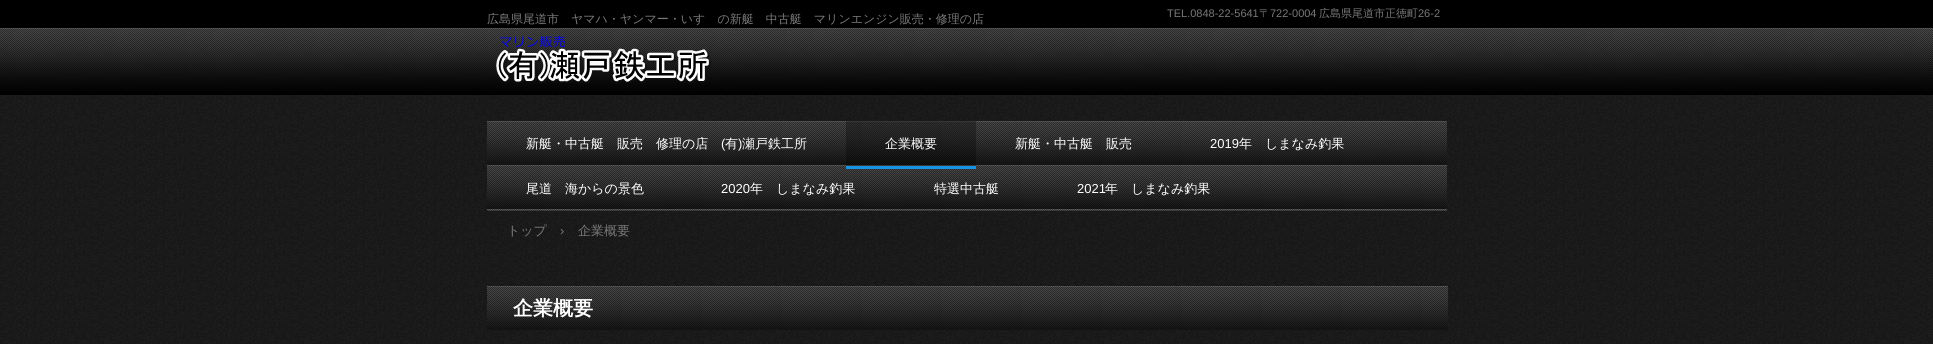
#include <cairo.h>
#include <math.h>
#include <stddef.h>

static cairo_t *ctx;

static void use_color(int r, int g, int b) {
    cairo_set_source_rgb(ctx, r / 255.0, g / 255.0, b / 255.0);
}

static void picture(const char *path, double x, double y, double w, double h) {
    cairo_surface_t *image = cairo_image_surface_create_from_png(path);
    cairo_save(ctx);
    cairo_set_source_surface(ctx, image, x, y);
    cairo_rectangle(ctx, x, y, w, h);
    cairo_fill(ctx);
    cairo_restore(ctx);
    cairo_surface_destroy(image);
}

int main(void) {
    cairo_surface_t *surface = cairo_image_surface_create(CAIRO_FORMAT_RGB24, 1933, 344);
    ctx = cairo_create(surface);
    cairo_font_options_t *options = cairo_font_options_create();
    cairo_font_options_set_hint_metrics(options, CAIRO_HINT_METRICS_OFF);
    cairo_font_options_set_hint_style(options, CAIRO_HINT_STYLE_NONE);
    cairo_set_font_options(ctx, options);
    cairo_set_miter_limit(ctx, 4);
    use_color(255, 255, 255);
    cairo_paint(ctx);
    picture("img1.png", 0, 95, 1933, 249);
    picture("img2.png", 0, 0, 1933, 95);
    cairo_select_font_face(ctx, "WenQuanYi Zen Hei Medium", CAIRO_FONT_SLANT_NORMAL, CAIRO_FONT_WEIGHT_NORMAL);
    cairo_set_font_size(ctx, 12);
    use_color(121, 121, 121);
    cairo_move_to(ctx, 487, 23);
    cairo_show_text(ctx, "広島県尾道市　ヤマハ・ヤンマー・いすゞの新艇　中古艇　マリンエンジン販売・修理の店");
    cairo_select_font_face(ctx, "Liberation Sans", CAIRO_FONT_SLANT_NORMAL, CAIRO_FONT_WEIGHT_NORMAL);
    cairo_set_font_size(ctx, 11);
    cairo_move_to(ctx, 1167, 17);
    cairo_show_text(ctx, "TEL.0848-22-5641");
    cairo_select_font_face(ctx, "WenQuanYi Zen Hei Medium", CAIRO_FONT_SLANT_NORMAL, CAIRO_FONT_WEIGHT_NORMAL);
    cairo_move_to(ctx, 1259, 17);
    cairo_show_text(ctx, "〒");
    cairo_select_font_face(ctx, "Liberation Sans", CAIRO_FONT_SLANT_NORMAL, CAIRO_FONT_WEIGHT_NORMAL);
    cairo_move_to(ctx, 1270, 17);
    cairo_show_text(ctx, "722-0004");
    cairo_select_font_face(ctx, "WenQuanYi Zen Hei Medium", CAIRO_FONT_SLANT_NORMAL, CAIRO_FONT_WEIGHT_NORMAL);
    cairo_move_to(ctx, 1319, 17);
    cairo_show_text(ctx, "広島県尾道市正徳町");
    cairo_select_font_face(ctx, "Liberation Sans", CAIRO_FONT_SLANT_NORMAL, CAIRO_FONT_WEIGHT_NORMAL);
    cairo_move_to(ctx, 1418, 17);
    cairo_show_text(ctx, "26-2");
    picture("img3.png", 496, 36, 215, 47);
    picture("img4.png", 487, 121, 960, 90);
    cairo_select_font_face(ctx, "WenQuanYi Zen Hei Medium", CAIRO_FONT_SLANT_NORMAL, CAIRO_FONT_WEIGHT_NORMAL);
    cairo_set_font_size(ctx, 13);
    use_color(255, 255, 255);
    cairo_move_to(ctx, 526, 148);
    cairo_show_text(ctx, "新艇・中古艇　販売　修理の店");
    cairo_select_font_face(ctx, "Liberation Sans", CAIRO_FONT_SLANT_NORMAL, CAIRO_FONT_WEIGHT_NORMAL);
    cairo_move_to(ctx, 721, 148);
    cairo_show_text(ctx, "(");
    cairo_select_font_face(ctx, "WenQuanYi Zen Hei Medium", CAIRO_FONT_SLANT_NORMAL, CAIRO_FONT_WEIGHT_NORMAL);
    cairo_move_to(ctx, 725, 148);
    cairo_show_text(ctx, "有");
    cairo_select_font_face(ctx, "Liberation Sans", CAIRO_FONT_SLANT_NORMAL, CAIRO_FONT_WEIGHT_NORMAL);
    cairo_move_to(ctx, 738, 148);
    cairo_show_text(ctx, ")");
    cairo_select_font_face(ctx, "WenQuanYi Zen Hei Medium", CAIRO_FONT_SLANT_NORMAL, CAIRO_FONT_WEIGHT_NORMAL);
    cairo_move_to(ctx, 742, 148);
    cairo_show_text(ctx, "瀬戸鉄工所");
    cairo_set_source_rgba(ctx, 0, 0, 0, 0.3);
    cairo_rectangle(ctx, 846, 121, 130, 45);
    cairo_fill(ctx);
    use_color(23, 147, 227);
    cairo_rectangle(ctx, 846, 166, 130, 3);
    cairo_fill(ctx);
    use_color(255, 255, 255);
    cairo_move_to(ctx, 885, 148);
    cairo_show_text(ctx, "企業概要");
    cairo_move_to(ctx, 1015, 148);
    cairo_show_text(ctx, "新艇・中古艇　販売");
    cairo_select_font_face(ctx, "Liberation Sans", CAIRO_FONT_SLANT_NORMAL, CAIRO_FONT_WEIGHT_NORMAL);
    cairo_move_to(ctx, 1210, 148);
    cairo_show_text(ctx, "2019");
    cairo_select_font_face(ctx, "WenQuanYi Zen Hei Medium", CAIRO_FONT_SLANT_NORMAL, CAIRO_FONT_WEIGHT_NORMAL);
    cairo_move_to(ctx, 1239, 148);
    cairo_show_text(ctx, "年　しまなみ釣果");
    cairo_move_to(ctx, 526, 193);
    cairo_show_text(ctx, "尾道　海からの景色");
    cairo_select_font_face(ctx, "Liberation Sans", CAIRO_FONT_SLANT_NORMAL, CAIRO_FONT_WEIGHT_NORMAL);
    cairo_move_to(ctx, 721, 193);
    cairo_show_text(ctx, "2020");
    cairo_select_font_face(ctx, "WenQuanYi Zen Hei Medium", CAIRO_FONT_SLANT_NORMAL, CAIRO_FONT_WEIGHT_NORMAL);
    cairo_move_to(ctx, 750, 193);
    cairo_show_text(ctx, "年　しまなみ釣果");
    cairo_move_to(ctx, 934, 193);
    cairo_show_text(ctx, "特選中古艇");
    cairo_select_font_face(ctx, "Liberation Sans", CAIRO_FONT_SLANT_NORMAL, CAIRO_FONT_WEIGHT_NORMAL);
    cairo_move_to(ctx, 1077, 193);
    cairo_show_text(ctx, "2021");
    cairo_select_font_face(ctx, "WenQuanYi Zen Hei Medium", CAIRO_FONT_SLANT_NORMAL, CAIRO_FONT_WEIGHT_NORMAL);
    cairo_move_to(ctx, 1105, 193);
    cairo_show_text(ctx, "年　しまなみ釣果");
    use_color(121, 121, 121);
    cairo_move_to(ctx, 507, 235);
    cairo_show_text(ctx, "トップ");
    cairo_select_font_face(ctx, "Liberation Sans", CAIRO_FONT_SLANT_NORMAL, CAIRO_FONT_WEIGHT_NORMAL);
    cairo_move_to(ctx, 560, 235);
    cairo_show_text(ctx, "›");
    cairo_select_font_face(ctx, "WenQuanYi Zen Hei Medium", CAIRO_FONT_SLANT_NORMAL, CAIRO_FONT_WEIGHT_NORMAL);
    cairo_move_to(ctx, 578, 235);
    cairo_show_text(ctx, "企業概要");
    picture("img5.png", 487, 286, 961, 44);
    cairo_select_font_face(ctx, "WenQuanYi Zen Hei", CAIRO_FONT_SLANT_NORMAL, CAIRO_FONT_WEIGHT_BOLD);
    cairo_set_font_size(ctx, 20);
    use_color(255, 255, 255);
    cairo_move_to(ctx, 513, 315);
    cairo_show_text(ctx, "企業概要");
    cairo_surface_write_to_png(surface, "result.png");
    cairo_font_options_destroy(options);
    cairo_destroy(ctx);
    cairo_surface_destroy(surface);
    return 0;
}
